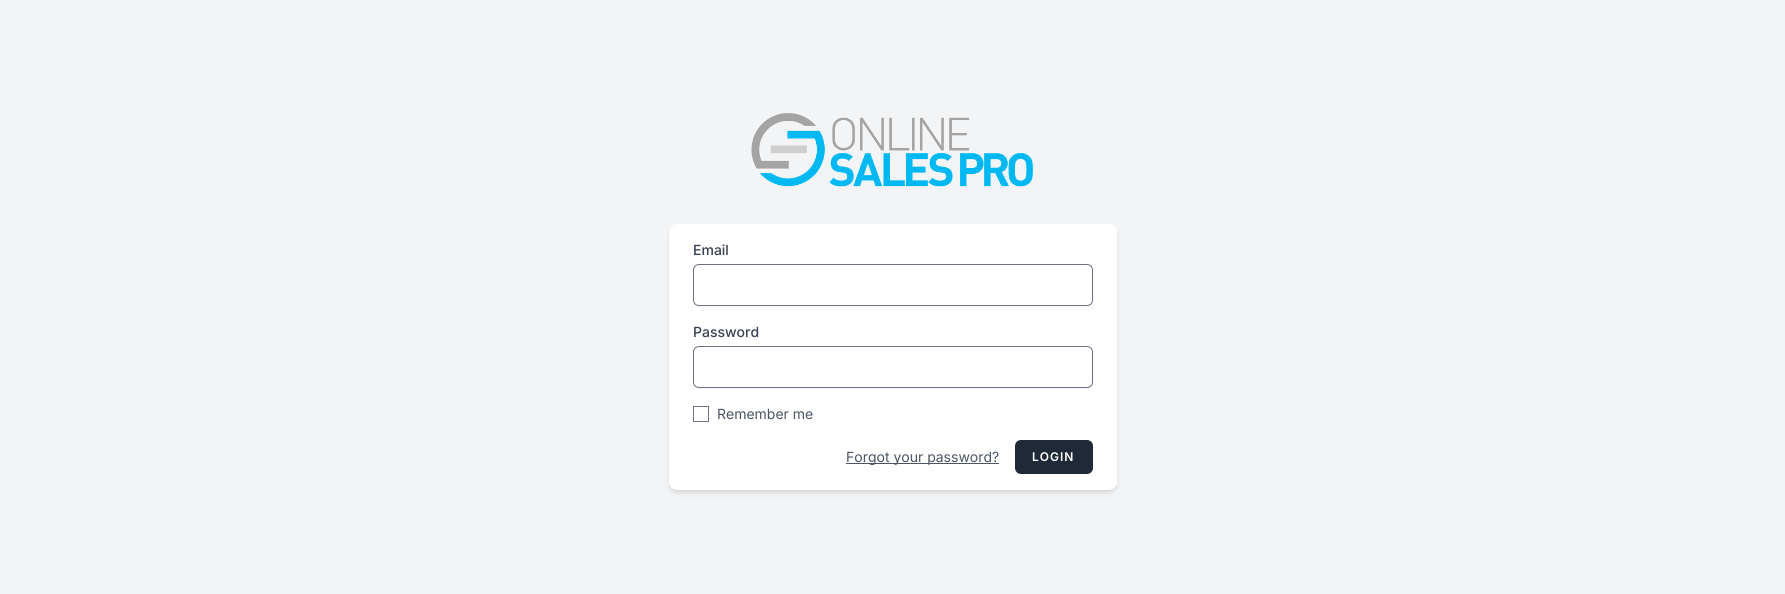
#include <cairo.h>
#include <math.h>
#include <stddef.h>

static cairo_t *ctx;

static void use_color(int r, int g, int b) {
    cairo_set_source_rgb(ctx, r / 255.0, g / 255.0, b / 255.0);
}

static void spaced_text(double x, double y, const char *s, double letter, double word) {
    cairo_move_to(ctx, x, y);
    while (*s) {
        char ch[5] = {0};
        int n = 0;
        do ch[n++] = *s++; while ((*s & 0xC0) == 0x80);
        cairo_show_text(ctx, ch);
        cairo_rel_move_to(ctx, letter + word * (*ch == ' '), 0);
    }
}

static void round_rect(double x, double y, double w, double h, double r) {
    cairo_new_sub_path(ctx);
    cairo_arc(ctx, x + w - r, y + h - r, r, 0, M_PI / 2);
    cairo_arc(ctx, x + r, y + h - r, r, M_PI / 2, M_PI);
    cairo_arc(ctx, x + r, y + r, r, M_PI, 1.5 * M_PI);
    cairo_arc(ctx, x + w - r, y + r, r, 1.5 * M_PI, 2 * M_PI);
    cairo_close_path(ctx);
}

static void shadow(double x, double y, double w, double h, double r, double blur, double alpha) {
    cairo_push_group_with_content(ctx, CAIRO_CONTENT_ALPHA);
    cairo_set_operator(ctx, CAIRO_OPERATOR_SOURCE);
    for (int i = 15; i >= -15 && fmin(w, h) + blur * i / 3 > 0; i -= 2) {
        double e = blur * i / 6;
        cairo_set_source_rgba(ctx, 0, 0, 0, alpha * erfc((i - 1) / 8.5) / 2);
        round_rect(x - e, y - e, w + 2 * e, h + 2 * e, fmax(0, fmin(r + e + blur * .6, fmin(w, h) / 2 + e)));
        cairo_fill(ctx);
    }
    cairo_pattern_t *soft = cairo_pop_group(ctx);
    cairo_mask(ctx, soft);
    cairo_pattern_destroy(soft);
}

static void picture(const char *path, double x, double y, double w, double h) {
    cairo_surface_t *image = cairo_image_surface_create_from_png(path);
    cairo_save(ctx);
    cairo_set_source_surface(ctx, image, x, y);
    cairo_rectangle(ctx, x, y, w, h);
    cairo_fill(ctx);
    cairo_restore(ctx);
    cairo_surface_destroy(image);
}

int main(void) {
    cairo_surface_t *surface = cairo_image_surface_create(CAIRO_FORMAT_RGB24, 1785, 594);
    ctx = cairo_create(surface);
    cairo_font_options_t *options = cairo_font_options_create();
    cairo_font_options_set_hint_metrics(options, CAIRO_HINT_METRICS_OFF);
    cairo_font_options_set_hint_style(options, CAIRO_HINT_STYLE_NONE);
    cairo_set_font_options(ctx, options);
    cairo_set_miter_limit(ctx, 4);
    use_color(243, 244, 246);
    cairo_paint(ctx);
    picture("img1.png", 751, 113, 282, 74);
    use_color(0, 0, 0);
    shadow(671, 228, 444, 262, 6, 2, 0.1);
    shadow(670, 229, 446, 264, 7, 3, 0.1);
    use_color(255, 255, 255);
    round_rect(669, 224, 448, 266, 8);
    cairo_fill(ctx);
    cairo_select_font_face(ctx, "Inter Medium", CAIRO_FONT_SLANT_NORMAL, CAIRO_FONT_WEIGHT_NORMAL);
    cairo_set_font_size(ctx, 14);
    use_color(55, 65, 81);
    cairo_move_to(ctx, 693, 255);
    cairo_show_text(ctx, "Email");
    use_color(0, 0, 0);
    shadow(693, 265, 400, 42, 6, 1, 0.05);
    use_color(255, 255, 255);
    round_rect(693.5, 264.5, 399, 41, 5.5);
    cairo_fill_preserve(ctx);
    use_color(107, 114, 128);
    cairo_set_line_width(ctx, 1);
    cairo_stroke(ctx);
    use_color(55, 65, 81);
    cairo_move_to(ctx, 693, 337);
    cairo_show_text(ctx, "Password");
    use_color(0, 0, 0);
    shadow(693, 347, 400, 42, 6, 1, 0.05);
    use_color(255, 255, 255);
    round_rect(693.5, 346.5, 399, 41, 5.5);
    cairo_fill_preserve(ctx);
    use_color(107, 114, 128);
    cairo_stroke(ctx);
    cairo_rectangle(ctx, 693.5, 406.5, 15, 15);
    cairo_stroke(ctx);
    cairo_select_font_face(ctx, "Inter", CAIRO_FONT_SLANT_NORMAL, CAIRO_FONT_WEIGHT_NORMAL);
    use_color(75, 85, 99);
    cairo_move_to(ctx, 717, 419);
    cairo_show_text(ctx, "Remember me");
    cairo_rectangle(ctx, 846, 463, 153, 1);
    cairo_fill(ctx);
    cairo_move_to(ctx, 846, 462);
    cairo_show_text(ctx, "Forgot your password?");
    use_color(31, 41, 55);
    round_rect(1015, 440, 78, 34, 6);
    cairo_fill(ctx);
    cairo_select_font_face(ctx, "Inter SemiBold", CAIRO_FONT_SLANT_NORMAL, CAIRO_FONT_WEIGHT_NORMAL);
    cairo_set_font_size(ctx, 12);
    use_color(255, 255, 255);
    spaced_text(1032, 461, "LOGIN", 1, 0);
    cairo_surface_write_to_png(surface, "result.png");
    cairo_font_options_destroy(options);
    cairo_destroy(ctx);
    cairo_surface_destroy(surface);
    return 0;
}
